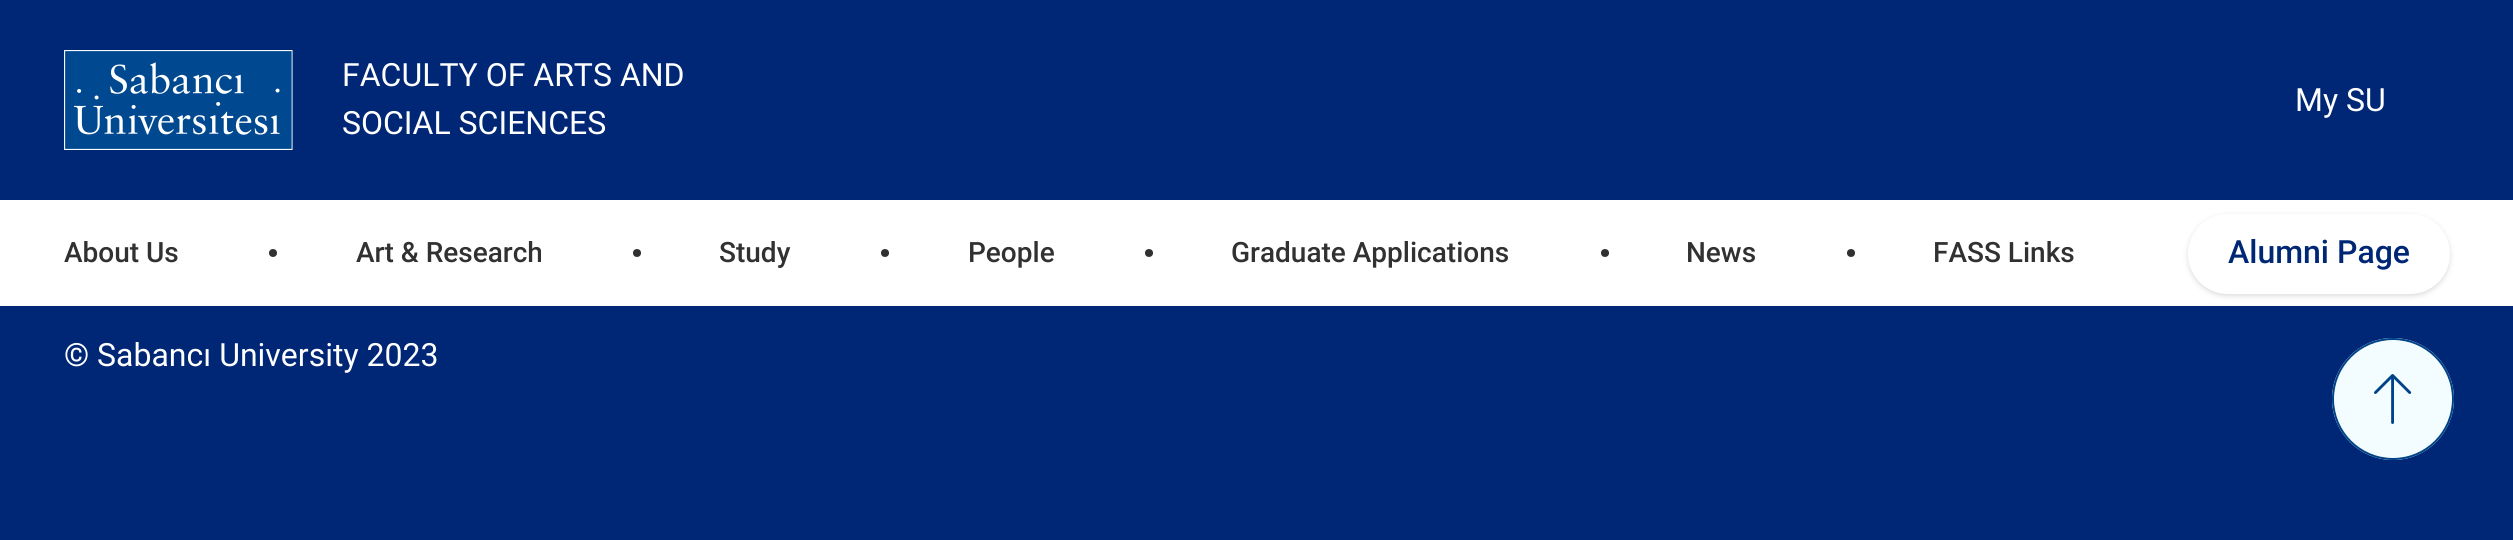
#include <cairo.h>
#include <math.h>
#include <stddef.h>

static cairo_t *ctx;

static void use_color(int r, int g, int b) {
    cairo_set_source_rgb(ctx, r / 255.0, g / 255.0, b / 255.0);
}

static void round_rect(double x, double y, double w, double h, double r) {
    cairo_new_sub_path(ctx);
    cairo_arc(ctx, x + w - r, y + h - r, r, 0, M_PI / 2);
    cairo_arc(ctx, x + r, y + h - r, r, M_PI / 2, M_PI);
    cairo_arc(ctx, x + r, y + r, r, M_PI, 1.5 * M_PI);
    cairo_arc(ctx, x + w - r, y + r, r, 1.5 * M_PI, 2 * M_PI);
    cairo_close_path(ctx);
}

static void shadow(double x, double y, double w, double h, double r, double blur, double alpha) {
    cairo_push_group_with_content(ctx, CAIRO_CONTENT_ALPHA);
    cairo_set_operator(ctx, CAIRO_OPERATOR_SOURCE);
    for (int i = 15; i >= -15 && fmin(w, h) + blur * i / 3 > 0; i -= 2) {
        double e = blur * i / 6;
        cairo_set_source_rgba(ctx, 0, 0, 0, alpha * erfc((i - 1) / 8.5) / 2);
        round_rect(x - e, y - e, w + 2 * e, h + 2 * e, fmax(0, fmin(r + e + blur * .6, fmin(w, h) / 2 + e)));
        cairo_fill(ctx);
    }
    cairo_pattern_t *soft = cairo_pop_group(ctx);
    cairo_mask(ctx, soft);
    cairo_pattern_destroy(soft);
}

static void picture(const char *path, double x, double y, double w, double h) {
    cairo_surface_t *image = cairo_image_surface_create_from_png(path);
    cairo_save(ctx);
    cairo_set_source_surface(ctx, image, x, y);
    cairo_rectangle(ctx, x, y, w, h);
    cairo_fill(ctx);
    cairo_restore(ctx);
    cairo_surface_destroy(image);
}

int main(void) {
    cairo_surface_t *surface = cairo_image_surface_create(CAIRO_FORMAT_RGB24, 2513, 540);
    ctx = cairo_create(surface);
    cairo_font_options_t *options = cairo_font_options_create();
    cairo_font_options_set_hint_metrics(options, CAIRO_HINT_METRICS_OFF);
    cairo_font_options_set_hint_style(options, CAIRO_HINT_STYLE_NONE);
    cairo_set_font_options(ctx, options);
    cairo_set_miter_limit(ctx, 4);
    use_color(0, 39, 118);
    cairo_paint(ctx);
    picture("img1.png", 64, 50, 229, 100);
    cairo_select_font_face(ctx, "Roboto", CAIRO_FONT_SLANT_NORMAL, CAIRO_FONT_WEIGHT_NORMAL);
    cairo_set_font_size(ctx, 32);
    use_color(255, 255, 255);
    cairo_move_to(ctx, 342, 86);
    cairo_show_text(ctx, "FACULTY OF ARTS AND");
    cairo_move_to(ctx, 342, 134);
    cairo_show_text(ctx, "SOCIAL SCIENCES");
    cairo_move_to(ctx, 2295, 111);
    cairo_show_text(ctx, "My SU");
    cairo_rectangle(ctx, 0, 200, 2513, 106);
    cairo_fill(ctx);
    cairo_select_font_face(ctx, "Roboto Medium", CAIRO_FONT_SLANT_NORMAL, CAIRO_FONT_WEIGHT_NORMAL);
    cairo_set_font_size(ctx, 28);
    use_color(49, 49, 49);
    cairo_move_to(ctx, 64, 262);
    cairo_show_text(ctx, "About Us");
    cairo_new_path(ctx);
    cairo_arc(ctx, 273, 253, 4, 0, 2 * M_PI);
    cairo_fill(ctx);
    cairo_move_to(ctx, 356, 262);
    cairo_show_text(ctx, "Art & Research");
    cairo_new_path(ctx);
    cairo_arc(ctx, 637, 253, 4, 0, 2 * M_PI);
    cairo_fill(ctx);
    cairo_move_to(ctx, 719, 262);
    cairo_show_text(ctx, "Study");
    cairo_new_path(ctx);
    cairo_arc(ctx, 885, 253, 4, 0, 2 * M_PI);
    cairo_fill(ctx);
    cairo_move_to(ctx, 968, 262);
    cairo_show_text(ctx, "People");
    cairo_new_path(ctx);
    cairo_arc(ctx, 1149, 253, 4, 0, 2 * M_PI);
    cairo_fill(ctx);
    cairo_move_to(ctx, 1231, 262);
    cairo_show_text(ctx, "Graduate Applications");
    cairo_new_path(ctx);
    cairo_arc(ctx, 1605, 253, 4, 0, 2 * M_PI);
    cairo_fill(ctx);
    cairo_move_to(ctx, 1686, 262);
    cairo_show_text(ctx, "News");
    cairo_new_path(ctx);
    cairo_arc(ctx, 1851, 253, 4, 0, 2 * M_PI);
    cairo_fill(ctx);
    cairo_move_to(ctx, 1933, 262);
    cairo_show_text(ctx, "FASS Links");
    use_color(16, 24, 40);
    shadow(2188, 216, 262, 80, 40, 3, 0.1);
    shadow(2188, 216, 262, 80, 40, 2, 0.06);
    use_color(255, 255, 255);
    round_rect(2188, 214, 262, 80, 40);
    cairo_fill(ctx);
    cairo_set_font_size(ctx, 32);
    use_color(0, 39, 118);
    cairo_move_to(ctx, 2228, 263);
    cairo_show_text(ctx, "Alumni Page");
    cairo_select_font_face(ctx, "Roboto", CAIRO_FONT_SLANT_NORMAL, CAIRO_FONT_WEIGHT_NORMAL);
    use_color(255, 255, 255);
    cairo_move_to(ctx, 64, 366);
    cairo_show_text(ctx, "© Sabancı University 2023");
    use_color(243, 253, 255);
    cairo_new_path(ctx);
    cairo_arc(ctx, 2393, 399, 61, 0, 2 * M_PI);
    cairo_fill(ctx);
    picture("img2.png", 2374, 374, 38, 50);
    cairo_arc(ctx, 2393, 399, 60, 0, 2 * M_PI);
    use_color(0, 66, 136);
    cairo_stroke(ctx);
    cairo_surface_write_to_png(surface, "result.png");
    cairo_font_options_destroy(options);
    cairo_destroy(ctx);
    cairo_surface_destroy(surface);
    return 0;
}
